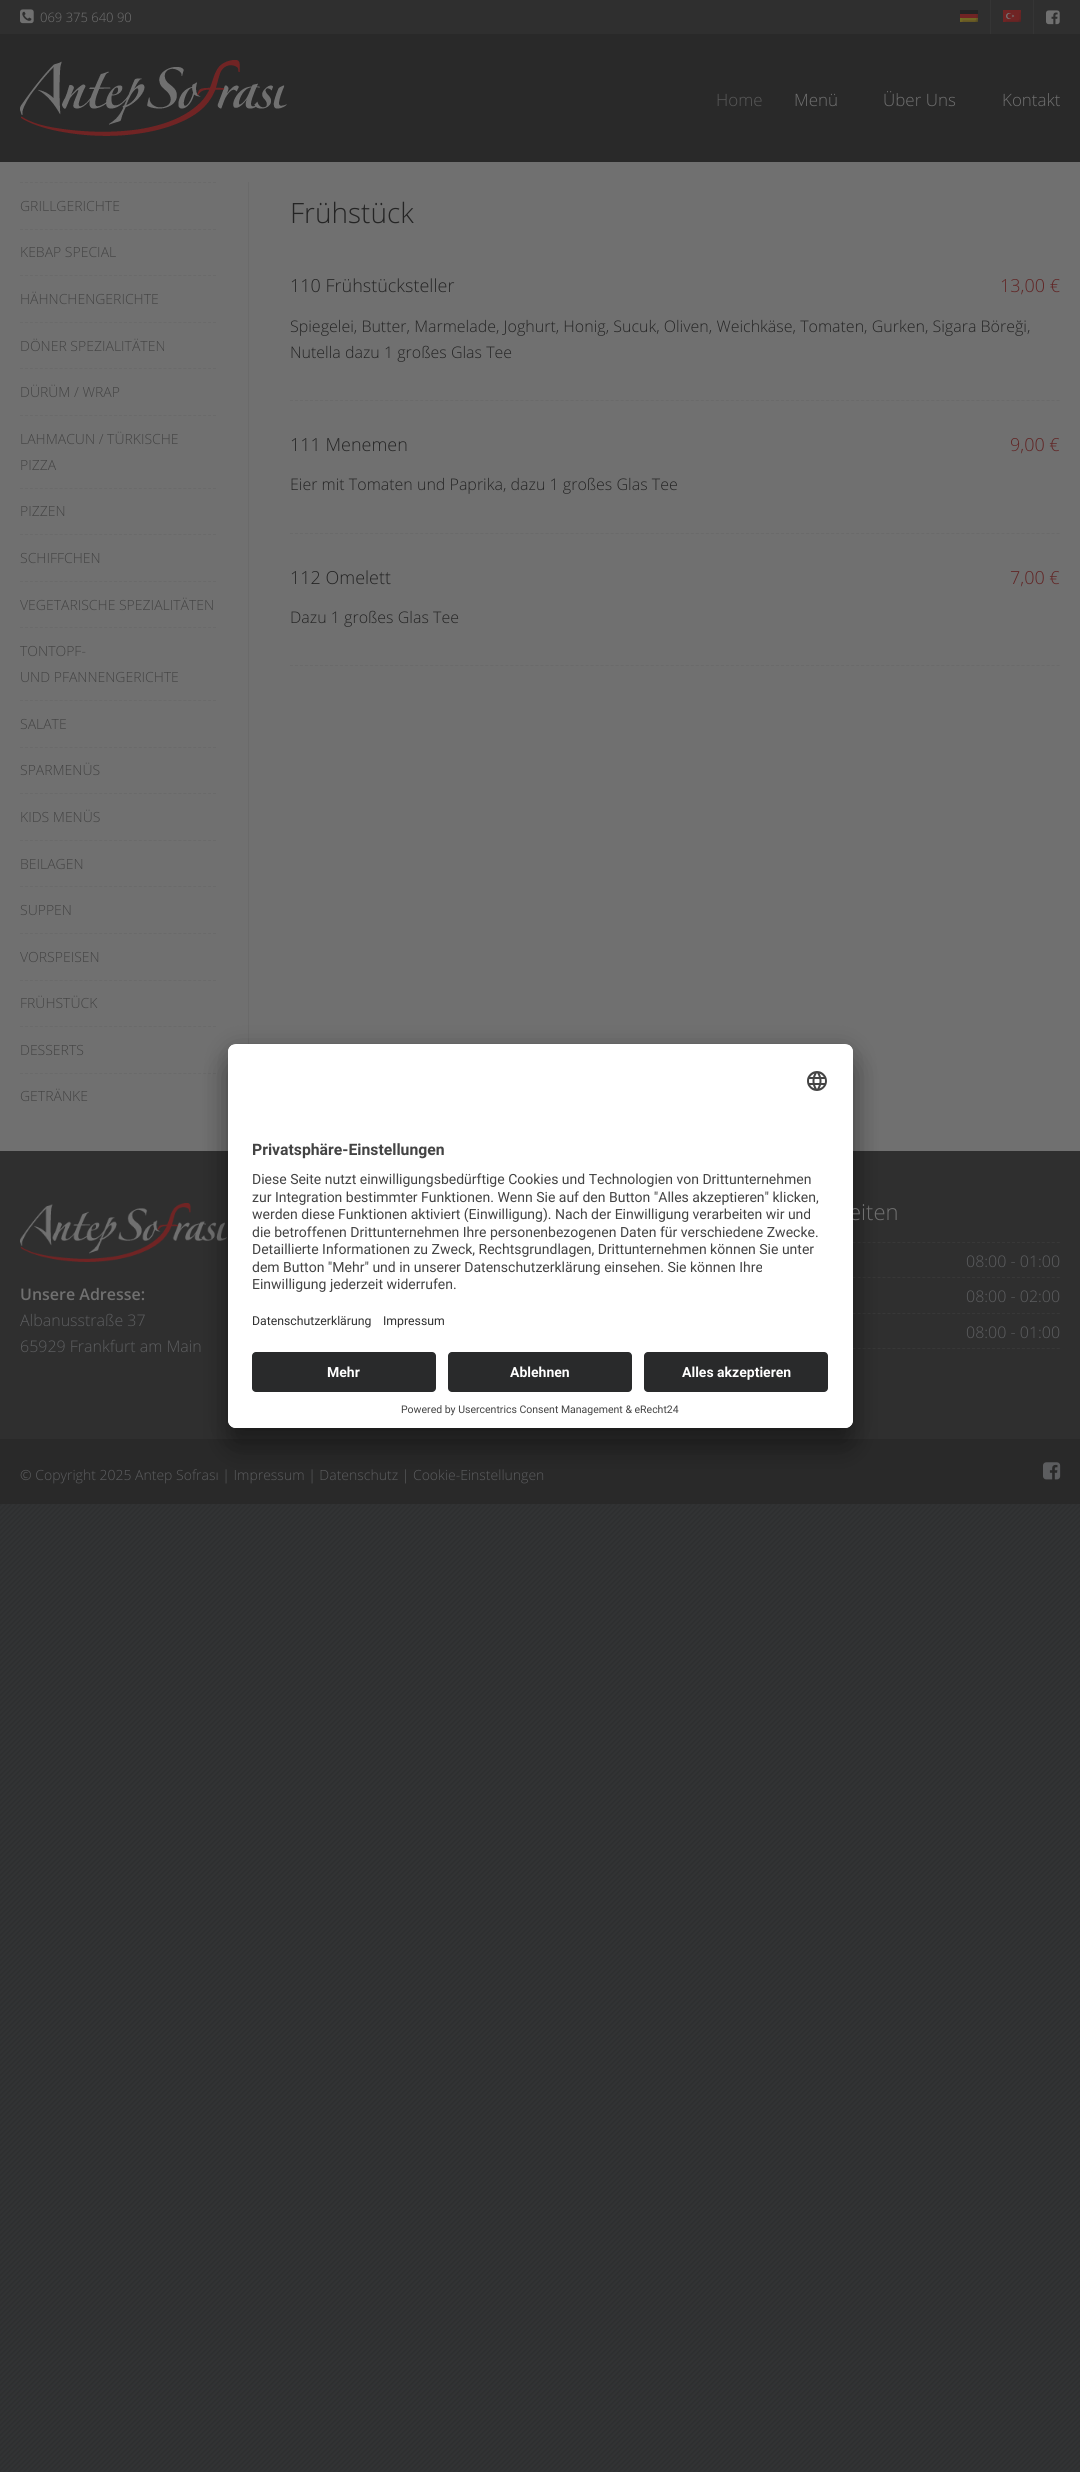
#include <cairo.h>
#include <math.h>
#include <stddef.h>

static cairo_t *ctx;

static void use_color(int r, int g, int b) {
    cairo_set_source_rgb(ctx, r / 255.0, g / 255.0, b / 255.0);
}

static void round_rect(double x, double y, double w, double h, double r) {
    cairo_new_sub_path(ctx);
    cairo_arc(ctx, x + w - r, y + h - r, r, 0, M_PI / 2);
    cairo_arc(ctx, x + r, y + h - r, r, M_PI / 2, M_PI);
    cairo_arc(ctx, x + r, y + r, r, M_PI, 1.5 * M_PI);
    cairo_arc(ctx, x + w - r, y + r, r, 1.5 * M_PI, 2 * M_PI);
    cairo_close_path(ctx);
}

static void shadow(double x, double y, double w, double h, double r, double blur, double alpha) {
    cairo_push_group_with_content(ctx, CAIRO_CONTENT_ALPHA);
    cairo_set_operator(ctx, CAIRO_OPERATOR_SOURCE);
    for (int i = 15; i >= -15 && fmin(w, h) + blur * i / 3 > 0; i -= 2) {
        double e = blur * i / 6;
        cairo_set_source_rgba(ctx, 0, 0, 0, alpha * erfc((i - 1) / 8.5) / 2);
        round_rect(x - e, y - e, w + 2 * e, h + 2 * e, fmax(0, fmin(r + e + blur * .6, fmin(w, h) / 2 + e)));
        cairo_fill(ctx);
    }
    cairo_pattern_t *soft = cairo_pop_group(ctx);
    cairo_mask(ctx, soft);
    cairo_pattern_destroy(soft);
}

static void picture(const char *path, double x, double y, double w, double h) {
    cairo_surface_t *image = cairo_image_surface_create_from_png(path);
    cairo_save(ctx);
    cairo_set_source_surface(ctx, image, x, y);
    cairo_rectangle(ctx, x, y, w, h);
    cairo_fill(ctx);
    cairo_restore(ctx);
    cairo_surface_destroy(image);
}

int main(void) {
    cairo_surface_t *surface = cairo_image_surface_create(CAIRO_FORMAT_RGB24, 1080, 2472);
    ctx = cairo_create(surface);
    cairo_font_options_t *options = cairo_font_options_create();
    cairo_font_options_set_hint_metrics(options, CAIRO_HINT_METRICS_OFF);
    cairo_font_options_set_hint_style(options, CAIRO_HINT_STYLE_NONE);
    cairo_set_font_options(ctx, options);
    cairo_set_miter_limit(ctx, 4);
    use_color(255, 255, 255);
    cairo_paint(ctx);
    picture("img1.png", 0, 1504, 1080, 968);
    use_color(47, 47, 47);
    cairo_rectangle(ctx, 0, 0, 1080, 34);
    cairo_fill(ctx);
    picture("img2.png", 20, 9, 14, 15);
    cairo_select_font_face(ctx, "Open Sans Light", CAIRO_FONT_SLANT_NORMAL, CAIRO_FONT_WEIGHT_NORMAL);
    cairo_set_font_size(ctx, 13);
    use_color(112, 112, 112);
    cairo_move_to(ctx, 40, 22);
    cairo_show_text(ctx, "069 375 640 90");
    use_color(53, 53, 53);
    cairo_rectangle(ctx, 990, 0, 1, 34);
    cairo_fill(ctx);
    picture("img3.png", 960, 10, 18, 12);
    cairo_rectangle(ctx, 1033, 0, 1, 34);
    cairo_fill(ctx);
    picture("img4.png", 1003, 10, 18, 12);
    picture("img5.png", 1046, 10, 14, 15);
    use_color(41, 41, 41);
    cairo_rectangle(ctx, 0, 34, 1080, 128);
    cairo_fill(ctx);
    picture("img6.png", 20, 60, 267, 76);
    cairo_set_font_size(ctx, 17);
    use_color(88, 88, 88);
    cairo_move_to(ctx, 716, 106);
    cairo_show_text(ctx, "Home");
    use_color(112, 112, 112);
    cairo_move_to(ctx, 794, 106);
    cairo_show_text(ctx, "Menü");
    cairo_move_to(ctx, 883, 106);
    cairo_show_text(ctx, "Über Uns");
    cairo_move_to(ctx, 1002, 106);
    cairo_show_text(ctx, "Kontakt");
    cairo_rectangle(ctx, 0, 162, 1080, 989);
    cairo_fill(ctx);
    use_color(106, 106, 106);
    cairo_rectangle(ctx, 248, 182, 1, 862);
    cairo_fill(ctx);
    cairo_new_path(ctx);
    cairo_move_to(ctx, 20, 182.5);
    cairo_line_to(ctx, 216, 182.5);
    cairo_set_line_width(ctx, 1);
    cairo_set_dash(ctx, (double[]){3, 1.95}, 2, 0);
    cairo_stroke(ctx);
    cairo_set_font_size(ctx, 14);
    use_color(67, 67, 67);
    cairo_move_to(ctx, 20, 211);
    cairo_show_text(ctx, "GRILLGERICHTE");
    cairo_new_path(ctx);
    cairo_move_to(ctx, 20, 229.5);
    cairo_line_to(ctx, 216, 229.5);
    use_color(106, 106, 106);
    cairo_stroke(ctx);
    use_color(67, 67, 67);
    cairo_move_to(ctx, 20, 257);
    cairo_show_text(ctx, "KEBAP SPECIAL");
    cairo_new_path(ctx);
    cairo_move_to(ctx, 20, 275.5);
    cairo_line_to(ctx, 216, 275.5);
    use_color(106, 106, 106);
    cairo_stroke(ctx);
    use_color(67, 67, 67);
    cairo_move_to(ctx, 20, 304);
    cairo_show_text(ctx, "HÄHNCHENGERICHTE");
    cairo_new_path(ctx);
    cairo_move_to(ctx, 20, 322.5);
    cairo_line_to(ctx, 216, 322.5);
    use_color(106, 106, 106);
    cairo_stroke(ctx);
    use_color(67, 67, 67);
    cairo_move_to(ctx, 20, 351);
    cairo_show_text(ctx, "DÖNER SPEZIALITÄTEN");
    cairo_new_path(ctx);
    cairo_move_to(ctx, 20, 368.5);
    cairo_line_to(ctx, 216, 368.5);
    use_color(106, 106, 106);
    cairo_stroke(ctx);
    use_color(67, 67, 67);
    cairo_move_to(ctx, 20, 397);
    cairo_show_text(ctx, "DÜRÜM / WRAP");
    cairo_new_path(ctx);
    cairo_move_to(ctx, 20, 415.5);
    cairo_line_to(ctx, 216, 415.5);
    use_color(106, 106, 106);
    cairo_stroke(ctx);
    use_color(67, 67, 67);
    cairo_move_to(ctx, 20, 444);
    cairo_show_text(ctx, "LAHMACUN / TÜRKISCHE");
    cairo_move_to(ctx, 20, 470);
    cairo_show_text(ctx, "PIZZA");
    cairo_new_path(ctx);
    cairo_move_to(ctx, 20, 488.5);
    cairo_line_to(ctx, 216, 488.5);
    use_color(106, 106, 106);
    cairo_stroke(ctx);
    use_color(67, 67, 67);
    cairo_move_to(ctx, 20, 516);
    cairo_show_text(ctx, "PIZZEN");
    cairo_new_path(ctx);
    cairo_move_to(ctx, 20, 534.5);
    cairo_line_to(ctx, 216, 534.5);
    use_color(106, 106, 106);
    cairo_stroke(ctx);
    use_color(67, 67, 67);
    cairo_move_to(ctx, 20, 563);
    cairo_show_text(ctx, "SCHIFFCHEN");
    cairo_new_path(ctx);
    cairo_move_to(ctx, 20, 581.5);
    cairo_line_to(ctx, 216, 581.5);
    use_color(106, 106, 106);
    cairo_stroke(ctx);
    use_color(67, 67, 67);
    cairo_move_to(ctx, 20, 610);
    cairo_show_text(ctx, "VEGETARISCHE SPEZIALITÄTEN");
    cairo_new_path(ctx);
    cairo_move_to(ctx, 20, 627.5);
    cairo_line_to(ctx, 216, 627.5);
    use_color(106, 106, 106);
    cairo_stroke(ctx);
    use_color(67, 67, 67);
    cairo_move_to(ctx, 20, 656);
    cairo_show_text(ctx, "TONTOPF-");
    cairo_move_to(ctx, 20, 682);
    cairo_show_text(ctx, "UND PFANNENGERICHTE");
    cairo_new_path(ctx);
    cairo_move_to(ctx, 20, 700.5);
    cairo_line_to(ctx, 216, 700.5);
    use_color(106, 106, 106);
    cairo_stroke(ctx);
    use_color(67, 67, 67);
    cairo_move_to(ctx, 20, 729);
    cairo_show_text(ctx, "SALATE");
    cairo_new_path(ctx);
    cairo_move_to(ctx, 20, 747.5);
    cairo_line_to(ctx, 216, 747.5);
    use_color(106, 106, 106);
    cairo_stroke(ctx);
    use_color(67, 67, 67);
    cairo_move_to(ctx, 20, 775);
    cairo_show_text(ctx, "SPARMENÜS");
    cairo_new_path(ctx);
    cairo_move_to(ctx, 20, 793.5);
    cairo_line_to(ctx, 216, 793.5);
    use_color(106, 106, 106);
    cairo_stroke(ctx);
    use_color(67, 67, 67);
    cairo_move_to(ctx, 20, 822);
    cairo_show_text(ctx, "KIDS MENÜS");
    cairo_new_path(ctx);
    cairo_move_to(ctx, 20, 840.5);
    cairo_line_to(ctx, 216, 840.5);
    use_color(106, 106, 106);
    cairo_stroke(ctx);
    use_color(67, 67, 67);
    cairo_move_to(ctx, 20, 869);
    cairo_show_text(ctx, "BEILAGEN");
    cairo_new_path(ctx);
    cairo_move_to(ctx, 20, 886.5);
    cairo_line_to(ctx, 216, 886.5);
    use_color(106, 106, 106);
    cairo_stroke(ctx);
    use_color(67, 67, 67);
    cairo_move_to(ctx, 20, 915);
    cairo_show_text(ctx, "SUPPEN");
    cairo_new_path(ctx);
    cairo_move_to(ctx, 20, 933.5);
    cairo_line_to(ctx, 216, 933.5);
    use_color(106, 106, 106);
    cairo_stroke(ctx);
    use_color(67, 67, 67);
    cairo_move_to(ctx, 20, 962);
    cairo_show_text(ctx, "VORSPEISEN");
    cairo_new_path(ctx);
    cairo_move_to(ctx, 20, 980.5);
    cairo_line_to(ctx, 216, 980.5);
    use_color(106, 106, 106);
    cairo_stroke(ctx);
    use_color(67, 67, 67);
    cairo_move_to(ctx, 20, 1008);
    cairo_show_text(ctx, "FRÜHSTÜCK");
    cairo_new_path(ctx);
    cairo_move_to(ctx, 20, 1026.5);
    cairo_line_to(ctx, 216, 1026.5);
    use_color(106, 106, 106);
    cairo_stroke(ctx);
    use_color(67, 67, 67);
    cairo_move_to(ctx, 20, 1055);
    cairo_show_text(ctx, "DESSERTS");
    cairo_new_path(ctx);
    cairo_move_to(ctx, 20, 1073.5);
    cairo_line_to(ctx, 216, 1073.5);
    use_color(106, 106, 106);
    cairo_stroke(ctx);
    use_color(67, 67, 67);
    cairo_move_to(ctx, 20, 1101);
    cairo_show_text(ctx, "GETRÄNKE");
    cairo_set_font_size(ctx, 28);
    use_color(36, 36, 36);
    cairo_move_to(ctx, 290, 223);
    cairo_show_text(ctx, "Frühstück");
    cairo_new_path(ctx);
    cairo_move_to(ctx, 290, 400.5);
    cairo_line_to(ctx, 1060, 400.5);
    use_color(106, 106, 106);
    cairo_set_dash(ctx, (double[]){3, 2.01}, 2, 0);
    cairo_stroke(ctx);
    cairo_set_font_size(ctx, 18);
    use_color(36, 36, 36);
    cairo_move_to(ctx, 290, 292);
    cairo_show_text(ctx, "110 Frühstücksteller");
    use_color(97, 37, 37);
    cairo_move_to(ctx, 1000, 292);
    cairo_show_text(ctx, "13,00 €");
    cairo_set_font_size(ctx, 16);
    use_color(36, 36, 36);
    cairo_move_to(ctx, 290, 332);
    cairo_show_text(ctx, "Spiegelei, Butter, Marmelade, Joghurt, Honig, Sucuk, Oliven, Weichkäse, Tomaten, Gurken, Sigara Böreği,");
    cairo_move_to(ctx, 290, 358);
    cairo_show_text(ctx, "Nutella dazu 1 großes Glas Tee");
    cairo_new_path(ctx);
    cairo_move_to(ctx, 290, 533.5);
    cairo_line_to(ctx, 1060, 533.5);
    use_color(106, 106, 106);
    cairo_stroke(ctx);
    cairo_set_font_size(ctx, 18);
    use_color(36, 36, 36);
    cairo_move_to(ctx, 290, 451);
    cairo_show_text(ctx, "111 Menemen");
    use_color(97, 37, 37);
    cairo_move_to(ctx, 1010, 451);
    cairo_show_text(ctx, "9,00 €");
    cairo_set_font_size(ctx, 16);
    use_color(36, 36, 36);
    cairo_move_to(ctx, 290, 490);
    cairo_show_text(ctx, "Eier mit Tomaten und Paprika, dazu 1 großes Glas Tee");
    cairo_new_path(ctx);
    cairo_move_to(ctx, 290, 665.5);
    cairo_line_to(ctx, 1060, 665.5);
    use_color(106, 106, 106);
    cairo_stroke(ctx);
    cairo_set_font_size(ctx, 18);
    use_color(36, 36, 36);
    cairo_move_to(ctx, 290, 584);
    cairo_show_text(ctx, "112 Omelett");
    use_color(97, 37, 37);
    cairo_move_to(ctx, 1010, 584);
    cairo_show_text(ctx, "7,00 €");
    cairo_set_font_size(ctx, 16);
    use_color(36, 36, 36);
    cairo_move_to(ctx, 290, 623);
    cairo_show_text(ctx, "Dazu 1 großes Glas Tee");
    use_color(47, 47, 47);
    cairo_rectangle(ctx, 0, 1151, 1080, 288);
    cairo_fill(ctx);
    picture("img8.png", 20, 1203, 207, 59);
    cairo_new_path(ctx);
    cairo_move_to(ctx, 748, 1242.5);
    cairo_line_to(ctx, 1060, 1242.5);
    use_color(56, 56, 56);
    cairo_set_dash(ctx, (double[]){3, 1.98}, 2, 0);
    cairo_stroke(ctx);
    cairo_new_path(ctx);
    cairo_move_to(ctx, 748, 1277.5);
    cairo_line_to(ctx, 1060, 1277.5);
    cairo_stroke(ctx);
    cairo_new_path(ctx);
    cairo_move_to(ctx, 748, 1313.5);
    cairo_line_to(ctx, 1060, 1313.5);
    cairo_stroke(ctx);
    cairo_new_path(ctx);
    cairo_move_to(ctx, 748, 1348.5);
    cairo_line_to(ctx, 1060, 1348.5);
    cairo_stroke(ctx);
    use_color(41, 41, 41);
    cairo_rectangle(ctx, 0, 1439, 1080, 65);
    cairo_fill(ctx);
    use_color(0, 0, 0);
    shadow(228, 1064, 625, 384, 8, 14, 0.3);
    shadow(228, 1049, 625, 384, 8, 13, 0.22);
    cairo_set_font_size(ctx, 22);
    use_color(112, 112, 112);
    cairo_move_to(ctx, 849, 1220);
    cairo_show_text(ctx, "eiten");
    use_color(255, 255, 255);
    round_rect(228, 1044, 625, 384, 8);
    cairo_fill(ctx);
    cairo_save(ctx);
    round_rect(228, 1044, 625, 384, 8);
    cairo_clip(ctx);
    cairo_new_path(ctx);
    cairo_move_to(ctx, 236, 1044);
    cairo_line_to(ctx, 845, 1044);
    cairo_curve_to(ctx, 849.5, 1044, 853, 1047.5, 853, 1052);
    cairo_line_to(ctx, 853, 1344);
    cairo_line_to(ctx, 228, 1344);
    cairo_line_to(ctx, 228, 1052);
    cairo_curve_to(ctx, 228, 1047.5, 231.5, 1044, 236, 1044);
    cairo_close_path(ctx);
    cairo_clip(ctx);
    cairo_rectangle(ctx, 228, 1045, 625, 299);
    cairo_fill(ctx);
    cairo_restore(ctx);
    picture("img7.png", 807, 1071, 20, 20);
    cairo_select_font_face(ctx, "Roboto", CAIRO_FONT_SLANT_NORMAL, CAIRO_FONT_WEIGHT_BOLD);
    cairo_set_font_size(ctx, 15.75);
    use_color(67, 67, 67);
    cairo_move_to(ctx, 252, 1155);
    cairo_show_text(ctx, "Privatsphäre-Einstellungen");
    cairo_select_font_face(ctx, "Roboto", CAIRO_FONT_SLANT_NORMAL, CAIRO_FONT_WEIGHT_NORMAL);
    cairo_set_font_size(ctx, 14);
    cairo_move_to(ctx, 252, 1184);
    cairo_show_text(ctx, "Diese Seite nutzt einwilligungsbedürftige Cookies und Technologien von Drittunternehmen");
    cairo_move_to(ctx, 252, 1202);
    cairo_show_text(ctx, "zur Integration bestimmter Funktionen. Wenn Sie auf den Button \"Alles akzeptieren\" klicken,");
    cairo_move_to(ctx, 252, 1219);
    cairo_show_text(ctx, "werden diese Funktionen aktiviert (Einwilligung). Nach der Einwilligung verarbeiten wir und");
    cairo_move_to(ctx, 252, 1237);
    cairo_show_text(ctx, "die betroffenen Drittunternehmen Ihre personenbezogenen Daten für verschiedene Zwecke.");
    cairo_move_to(ctx, 252, 1254);
    cairo_show_text(ctx, "Detaillierte Informationen zu Zweck, Rechtsgrundlagen, Drittunternehmen können Sie unter");
    cairo_move_to(ctx, 252, 1272);
    cairo_show_text(ctx, "dem Button \"Mehr\" und in unserer Datenschutzerklärung einsehen. Sie können Ihre");
    cairo_move_to(ctx, 252, 1289);
    cairo_show_text(ctx, "Einwilligung jederzeit widerrufen.");
    cairo_set_font_size(ctx, 12.25);
    use_color(48, 48, 48);
    cairo_move_to(ctx, 252, 1325);
    cairo_show_text(ctx, "Datenschutzerklärung");
    cairo_move_to(ctx, 383, 1325);
    cairo_show_text(ctx, "Impressum");
    use_color(255, 255, 255);
    cairo_new_path(ctx);
    cairo_move_to(ctx, 228, 1344);
    cairo_line_to(ctx, 853, 1344);
    cairo_line_to(ctx, 853, 1420);
    cairo_curve_to(ctx, 853, 1424.5, 849.5, 1428, 845, 1428);
    cairo_line_to(ctx, 236, 1428);
    cairo_curve_to(ctx, 231.5, 1428, 228, 1424.5, 228, 1420);
    cairo_close_path(ctx);
    cairo_fill(ctx);
    use_color(41, 42, 43);
    round_rect(252, 1352, 184, 40, 4);
    cairo_fill(ctx);
    cairo_select_font_face(ctx, "Roboto", CAIRO_FONT_SLANT_NORMAL, CAIRO_FONT_WEIGHT_BOLD);
    cairo_set_font_size(ctx, 14);
    use_color(255, 255, 255);
    cairo_move_to(ctx, 327, 1377);
    cairo_show_text(ctx, "Mehr");
    use_color(41, 42, 43);
    round_rect(448, 1352, 184, 40, 4);
    cairo_fill(ctx);
    use_color(255, 255, 255);
    cairo_move_to(ctx, 510, 1377);
    cairo_show_text(ctx, "Ablehnen");
    use_color(41, 42, 43);
    round_rect(644, 1352, 184, 40, 4);
    cairo_fill(ctx);
    use_color(255, 255, 255);
    cairo_move_to(ctx, 682, 1377);
    cairo_show_text(ctx, "Alles akzeptieren");
    cairo_select_font_face(ctx, "Roboto", CAIRO_FONT_SLANT_NORMAL, CAIRO_FONT_WEIGHT_NORMAL);
    cairo_set_font_size(ctx, 10.5);
    use_color(67, 67, 67);
    cairo_move_to(ctx, 401, 1413);
    cairo_show_text(ctx, "Powered by Usercentrics Consent Management & eRecht24");
    cairo_select_font_face(ctx, "Open Sans SemiBold", CAIRO_FONT_SLANT_NORMAL, CAIRO_FONT_WEIGHT_NORMAL);
    cairo_set_font_size(ctx, 16);
    use_color(112, 112, 112);
    cairo_move_to(ctx, 20, 1300);
    cairo_show_text(ctx, "Unsere Adresse:");
    cairo_select_font_face(ctx, "Open Sans Light", CAIRO_FONT_SLANT_NORMAL, CAIRO_FONT_WEIGHT_NORMAL);
    use_color(92, 93, 95);
    cairo_move_to(ctx, 20, 1326);
    cairo_show_text(ctx, "Albanusstraße 37");
    cairo_move_to(ctx, 20, 1352);
    cairo_show_text(ctx, "65929 Frankfurt am Main");
    cairo_move_to(ctx, 966, 1267);
    cairo_show_text(ctx, "08:00 - 01:00");
    cairo_move_to(ctx, 966, 1302);
    cairo_show_text(ctx, "08:00 - 02:00");
    cairo_move_to(ctx, 966, 1338);
    cairo_show_text(ctx, "08:00 - 01:00");
    cairo_set_font_size(ctx, 14);
    cairo_move_to(ctx, 20, 1480);
    cairo_show_text(ctx, "© Copyright 2025 Antep Sofrası | Impressum | Datenschutz | Cookie-Einstellungen");
    picture("img9.png", 1043, 1462, 18, 18);
    cairo_surface_write_to_png(surface, "result.png");
    cairo_font_options_destroy(options);
    cairo_destroy(ctx);
    cairo_surface_destroy(surface);
    return 0;
}
